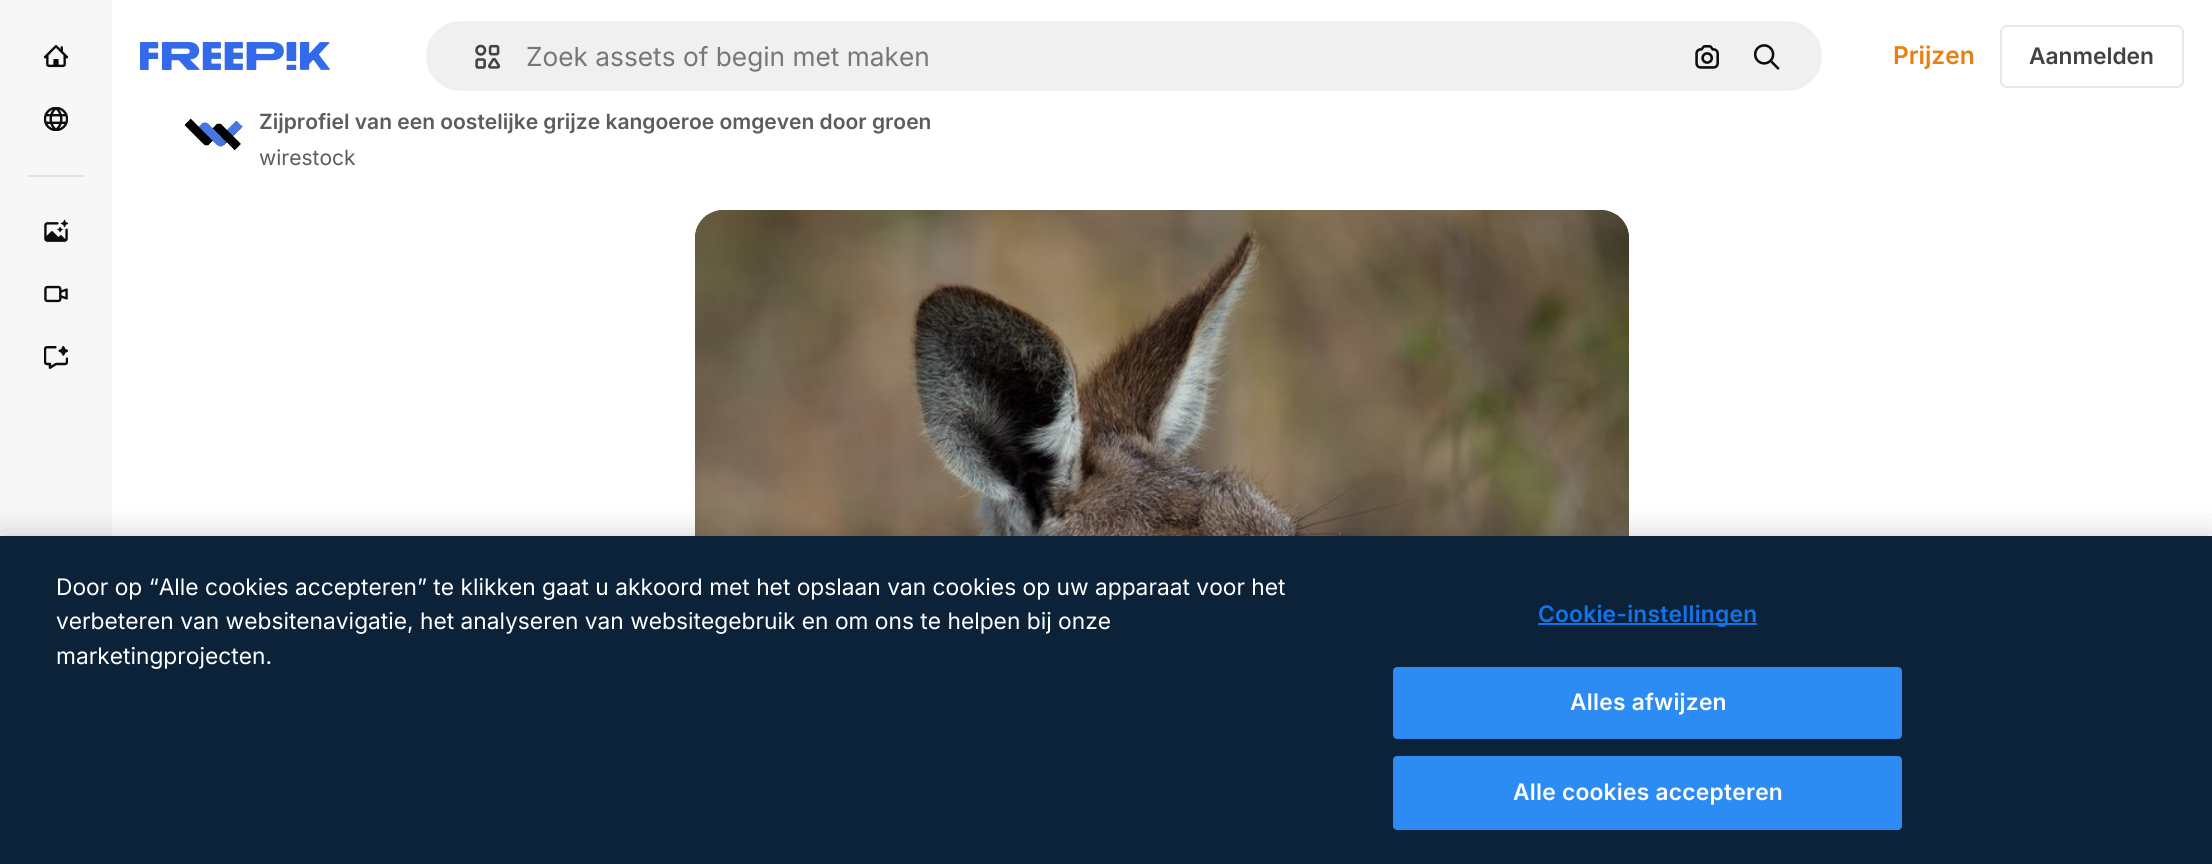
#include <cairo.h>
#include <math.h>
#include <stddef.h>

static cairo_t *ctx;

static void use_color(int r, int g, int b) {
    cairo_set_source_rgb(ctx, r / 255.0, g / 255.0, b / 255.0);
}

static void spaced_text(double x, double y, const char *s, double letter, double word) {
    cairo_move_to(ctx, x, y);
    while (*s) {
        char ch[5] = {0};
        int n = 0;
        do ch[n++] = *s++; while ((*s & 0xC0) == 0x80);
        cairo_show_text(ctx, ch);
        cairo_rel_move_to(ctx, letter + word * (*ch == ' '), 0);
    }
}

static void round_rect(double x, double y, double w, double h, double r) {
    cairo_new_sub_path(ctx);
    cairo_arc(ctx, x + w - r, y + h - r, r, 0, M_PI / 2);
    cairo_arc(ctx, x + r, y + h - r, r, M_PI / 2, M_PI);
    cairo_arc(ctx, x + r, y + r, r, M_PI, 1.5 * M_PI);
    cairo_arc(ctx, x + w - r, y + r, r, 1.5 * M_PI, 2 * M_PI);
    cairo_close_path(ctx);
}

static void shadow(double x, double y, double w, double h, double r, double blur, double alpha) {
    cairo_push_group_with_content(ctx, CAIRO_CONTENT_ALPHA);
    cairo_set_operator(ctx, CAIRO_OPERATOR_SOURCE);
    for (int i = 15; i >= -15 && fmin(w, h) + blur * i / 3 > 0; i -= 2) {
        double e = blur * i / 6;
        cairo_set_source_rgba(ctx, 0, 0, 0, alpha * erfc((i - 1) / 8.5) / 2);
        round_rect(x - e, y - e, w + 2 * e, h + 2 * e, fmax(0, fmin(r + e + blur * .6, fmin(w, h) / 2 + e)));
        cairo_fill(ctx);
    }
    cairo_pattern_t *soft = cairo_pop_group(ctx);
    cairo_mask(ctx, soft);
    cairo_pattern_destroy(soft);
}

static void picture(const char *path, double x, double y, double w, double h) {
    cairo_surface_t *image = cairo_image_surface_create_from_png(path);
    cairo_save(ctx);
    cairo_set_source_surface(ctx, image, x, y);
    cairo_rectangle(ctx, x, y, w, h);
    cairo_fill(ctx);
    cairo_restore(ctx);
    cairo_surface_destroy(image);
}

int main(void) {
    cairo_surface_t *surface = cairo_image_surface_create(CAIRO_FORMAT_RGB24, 2212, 864);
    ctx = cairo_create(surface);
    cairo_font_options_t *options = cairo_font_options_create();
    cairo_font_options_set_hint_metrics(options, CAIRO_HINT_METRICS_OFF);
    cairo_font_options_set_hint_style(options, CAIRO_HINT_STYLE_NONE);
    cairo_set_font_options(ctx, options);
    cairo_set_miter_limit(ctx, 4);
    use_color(255, 255, 255);
    cairo_paint(ctx);
    use_color(247, 247, 247);
    cairo_rectangle(ctx, 0, 0, 112, 536);
    cairo_fill(ctx);
    picture("img1.png", 44, 45, 24, 23);
    picture("img2.png", 44, 107, 24, 24);
    use_color(224, 224, 224);
    cairo_rectangle(ctx, 28, 175, 56, 2);
    cairo_fill(ctx);
    picture("img3.png", 44, 219, 24, 23);
    picture("img4.png", 44, 285, 24, 18);
    picture("img5.png", 44, 346, 24, 23);
    picture("img6.png", 140, 42, 190, 28);
    use_color(240, 240, 240);
    round_rect(425, 20, 1398, 72, 36);
    cairo_fill_preserve(ctx);
    use_color(255, 255, 255);
    cairo_stroke(ctx);
    picture("img7.png", 475, 44, 26, 25);
    cairo_select_font_face(ctx, "Inter", CAIRO_FONT_SLANT_NORMAL, CAIRO_FONT_WEIGHT_NORMAL);
    cairo_set_font_size(ctx, 26.25);
    use_color(119, 119, 119);
    cairo_move_to(ctx, 526, 66);
    cairo_show_text(ctx, "Zoek assets of begin met maken");
    picture("img8.png", 1695, 45, 24, 24);
    picture("img9.png", 1754, 44, 26, 26);
    cairo_select_font_face(ctx, "Inter SemiBold", CAIRO_FONT_SLANT_NORMAL, CAIRO_FONT_WEIGHT_NORMAL);
    cairo_set_font_size(ctx, 24.5);
    use_color(234, 126, 17);
    cairo_move_to(ctx, 1893, 64);
    cairo_show_text(ctx, "Prijzen");
    round_rect(2001, 26, 182, 61, 6);
    use_color(231, 231, 231);
    cairo_stroke(ctx);
    cairo_set_font_size(ctx, 22.75);
    use_color(66, 66, 66);
    cairo_move_to(ctx, 2029, 64);
    cairo_show_text(ctx, "Aanmelden");
    picture("img10.png", 184, 112, 60, 38);
    cairo_set_font_size(ctx, 21);
    use_color(92, 92, 92);
    cairo_move_to(ctx, 259, 129);
    cairo_show_text(ctx, "Zijprofiel van een oostelijke grijze kangoeroe omgeven door groen");
    cairo_select_font_face(ctx, "Inter", CAIRO_FONT_SLANT_NORMAL, CAIRO_FONT_WEIGHT_NORMAL);
    cairo_move_to(ctx, 259, 165);
    cairo_show_text(ctx, "wirestock");
    picture("img11.png", 695, 210, 934, 326);
    use_color(0, 0, 0);
    shadow(0, 536, 2212, 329, 0, 16, 0.2);
    use_color(11, 34, 57);
    cairo_rectangle(ctx, 0, 536, 2212, 328);
    cairo_fill(ctx);
    cairo_set_font_size(ctx, 22.75);
    use_color(255, 255, 255);
    cairo_move_to(ctx, 56, 595);
    cairo_show_text(ctx, "Door op “Alle cookies accepteren” te klikken gaat u akkoord met het opslaan van cookies op uw apparaat voor het");
    cairo_move_to(ctx, 56, 629);
    cairo_show_text(ctx, "verbeteren van websitenavigatie, het analyseren van websitegebruik en om ons te helpen bij onze");
    cairo_move_to(ctx, 56, 664);
    cairo_show_text(ctx, "marketingprojecten.");
    use_color(18, 115, 235);
    cairo_rectangle(ctx, 1538, 623, 219, 2);
    cairo_fill(ctx);
    cairo_select_font_face(ctx, "Inter SemiBold", CAIRO_FONT_SLANT_NORMAL, CAIRO_FONT_WEIGHT_NORMAL);
    spaced_text(1538, 622, "Cookie-instellingen", 0.25, 0);
    use_color(44, 140, 244);
    round_rect(1394, 668, 507, 70, 3);
    cairo_fill_preserve(ctx);
    cairo_stroke(ctx);
    use_color(255, 255, 255);
    spaced_text(1570, 710, "Alles afwijzen", 0.25, 0);
    use_color(44, 140, 244);
    round_rect(1394, 757, 507, 72, 3);
    cairo_fill_preserve(ctx);
    cairo_stroke(ctx);
    use_color(255, 255, 255);
    spaced_text(1513, 800, "Alle cookies accepteren", 0.25, 0);
    cairo_surface_write_to_png(surface, "result.png");
    cairo_font_options_destroy(options);
    cairo_destroy(ctx);
    cairo_surface_destroy(surface);
    return 0;
}
